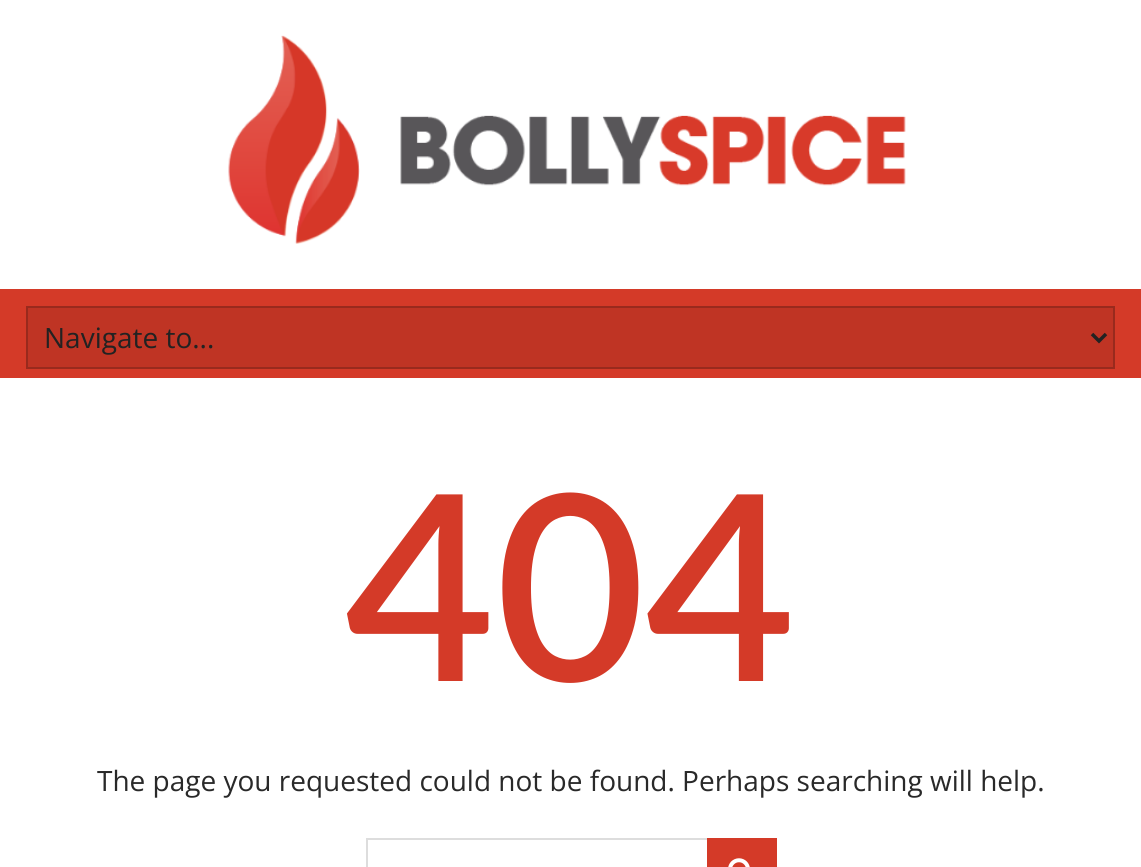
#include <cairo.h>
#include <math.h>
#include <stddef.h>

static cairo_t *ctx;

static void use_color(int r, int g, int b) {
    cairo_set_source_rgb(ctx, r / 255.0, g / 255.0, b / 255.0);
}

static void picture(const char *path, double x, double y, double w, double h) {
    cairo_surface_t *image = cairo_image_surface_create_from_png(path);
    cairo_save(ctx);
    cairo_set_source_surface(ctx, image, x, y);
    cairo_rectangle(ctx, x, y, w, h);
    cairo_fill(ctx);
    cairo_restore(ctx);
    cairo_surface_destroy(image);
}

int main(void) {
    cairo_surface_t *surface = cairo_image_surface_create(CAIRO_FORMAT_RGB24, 1141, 867);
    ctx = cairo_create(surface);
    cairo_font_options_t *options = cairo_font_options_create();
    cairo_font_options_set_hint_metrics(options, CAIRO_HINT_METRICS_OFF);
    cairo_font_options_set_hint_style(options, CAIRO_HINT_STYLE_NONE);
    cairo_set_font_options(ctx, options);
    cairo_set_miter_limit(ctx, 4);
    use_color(255, 255, 255);
    cairo_paint(ctx);
    picture("img1.png", 228, 35, 678, 209);
    use_color(212, 58, 40);
    cairo_rectangle(ctx, 0, 289, 1141, 89);
    cairo_fill(ctx);
    use_color(191, 52, 36);
    cairo_rectangle(ctx, 27, 307, 1087, 61);
    cairo_fill_preserve(ctx);
    use_color(153, 42, 29);
    cairo_stroke(ctx);
    cairo_new_path(ctx);
    cairo_move_to(ctx, 1092, 334);
    cairo_line_to(ctx, 1099, 341);
    cairo_line_to(ctx, 1106, 334);
    use_color(34, 34, 34);
    cairo_set_line_width(ctx, 3.5);
    cairo_stroke(ctx);
    cairo_select_font_face(ctx, "Open Sans", CAIRO_FONT_SLANT_NORMAL, CAIRO_FONT_WEIGHT_NORMAL);
    cairo_set_font_size(ctx, 28);
    cairo_move_to(ctx, 44, 348);
    cairo_show_text(ctx, "Navigate to...");
    cairo_select_font_face(ctx, "Lato SemiBold", CAIRO_FONT_SLANT_NORMAL, CAIRO_FONT_WEIGHT_NORMAL);
    cairo_set_font_size(ctx, 259);
    use_color(212, 58, 40);
    cairo_move_to(ctx, 345, 681);
    cairo_show_text(ctx, "404");
    cairo_select_font_face(ctx, "Open Sans", CAIRO_FONT_SLANT_NORMAL, CAIRO_FONT_WEIGHT_NORMAL);
    cairo_set_font_size(ctx, 28);
    use_color(41, 41, 41);
    cairo_move_to(ctx, 97, 791);
    cairo_show_text(ctx, "The page you requested could not be found. Perhaps searching will help.");
    cairo_rectangle(ctx, 367, 839, 409, 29);
    use_color(221, 221, 221);
    cairo_set_line_width(ctx, 2);
    cairo_stroke(ctx);
    use_color(212, 58, 40);
    cairo_rectangle(ctx, 707, 838, 70, 29);
    cairo_fill(ctx);
    picture("img2.png", 728, 858, 22, 9);
    cairo_surface_write_to_png(surface, "result.png");
    cairo_font_options_destroy(options);
    cairo_destroy(ctx);
    cairo_surface_destroy(surface);
    return 0;
}
